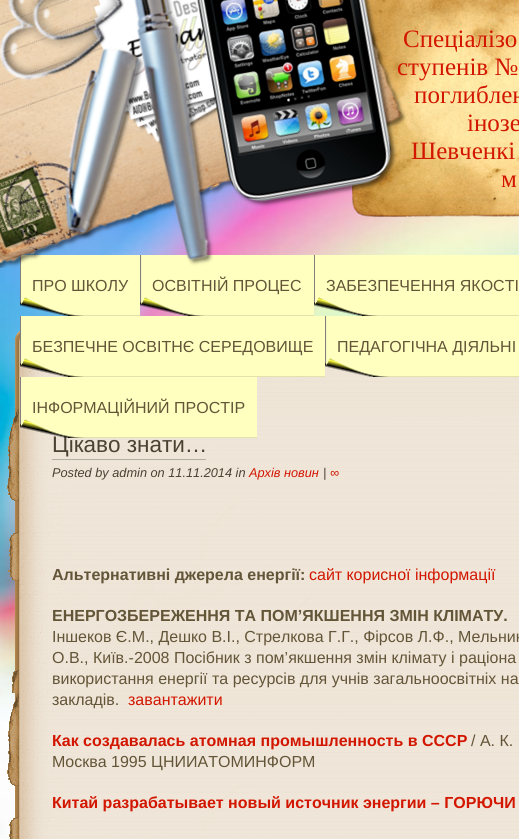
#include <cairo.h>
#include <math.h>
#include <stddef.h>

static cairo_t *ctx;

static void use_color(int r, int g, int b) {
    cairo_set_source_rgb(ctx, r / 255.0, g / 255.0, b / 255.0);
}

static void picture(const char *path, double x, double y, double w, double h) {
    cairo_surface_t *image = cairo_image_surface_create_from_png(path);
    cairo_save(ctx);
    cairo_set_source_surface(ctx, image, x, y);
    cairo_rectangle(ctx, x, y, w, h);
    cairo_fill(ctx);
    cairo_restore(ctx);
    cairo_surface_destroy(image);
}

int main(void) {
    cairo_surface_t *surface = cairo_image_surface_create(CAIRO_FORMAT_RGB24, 519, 839);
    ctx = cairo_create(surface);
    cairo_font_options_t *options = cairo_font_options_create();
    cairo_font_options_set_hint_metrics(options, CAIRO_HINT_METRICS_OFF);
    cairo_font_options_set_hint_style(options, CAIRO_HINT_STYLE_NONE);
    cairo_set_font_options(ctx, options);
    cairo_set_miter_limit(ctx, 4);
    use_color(255, 255, 255);
    cairo_paint(ctx);
    picture("img1.png", 0, 179, 519, 660);
    picture("img3.png", 352, 0, 167, 217);
    cairo_select_font_face(ctx, "Liberation Serif", CAIRO_FONT_SLANT_NORMAL, CAIRO_FONT_WEIGHT_NORMAL);
    cairo_set_font_size(ctx, 25);
    use_color(210, 22, 0);
    cairo_move_to(ctx, 403, 47);
    cairo_show_text(ctx, "Спеціалізо");
    cairo_move_to(ctx, 397, 75);
    cairo_show_text(ctx, "ступенів №");
    picture("img4.png", 20, 255, 120, 61);
    picture("img5.png", 140, 255, 174, 61);
    picture("img6.png", 314, 255, 205, 61);
    picture("img2.png", 0, 0, 407, 268);
    cairo_move_to(ctx, 414, 103);
    cairo_show_text(ctx, "поглиблен");
    cairo_move_to(ctx, 467, 131);
    cairo_show_text(ctx, "інозе");
    cairo_move_to(ctx, 411, 159);
    cairo_show_text(ctx, "Шевченкі");
    cairo_move_to(ctx, 501, 187);
    cairo_show_text(ctx, "м");
    cairo_select_font_face(ctx, "Liberation Sans", CAIRO_FONT_SLANT_NORMAL, CAIRO_FONT_WEIGHT_NORMAL);
    cairo_set_font_size(ctx, 16);
    use_color(99, 85, 55);
    cairo_move_to(ctx, 32, 291);
    cairo_show_text(ctx, "ПРО ШКОЛУ");
    cairo_move_to(ctx, 152, 291);
    cairo_show_text(ctx, "ОСВІТНІЙ ПРОЦЕС");
    cairo_move_to(ctx, 326, 291);
    cairo_show_text(ctx, "ЗАБЕЗПЕЧЕННЯ ЯКОСТІ");
    picture("img10.png", 15, 331, 504, 77);
    picture("img7.png", 20, 316, 305, 61);
    cairo_move_to(ctx, 32, 352);
    cairo_show_text(ctx, "БЕЗПЕЧНЕ ОСВІТНЄ СЕРЕДОВИЩЕ");
    picture("img8.png", 325, 316, 194, 61);
    cairo_move_to(ctx, 337, 352);
    cairo_show_text(ctx, "ПЕДАГОГІЧНА ДІЯЛЬНІ");
    picture("img11.png", 7, 408, 512, 431);
    cairo_set_font_size(ctx, 22.5);
    use_color(74, 65, 49);
    cairo_move_to(ctx, 52, 452);
    cairo_show_text(ctx, "Цікаво знати…");
    picture("img9.png", 20, 377, 237, 61);
    cairo_set_font_size(ctx, 16);
    use_color(99, 85, 55);
    cairo_move_to(ctx, 32, 413);
    cairo_show_text(ctx, "ІНФОРМАЦІЙНИЙ ПРОСТІР");
    use_color(178, 176, 164);
    cairo_rectangle(ctx, 52, 459, 154, 1);
    cairo_fill(ctx);
    cairo_select_font_face(ctx, "Liberation Sans", CAIRO_FONT_SLANT_ITALIC, CAIRO_FONT_WEIGHT_NORMAL);
    cairo_set_font_size(ctx, 12.75);
    use_color(74, 65, 49);
    cairo_move_to(ctx, 52, 477);
    cairo_show_text(ctx, "Posted by admin on 11.11.2014 in");
    use_color(210, 22, 0);
    cairo_move_to(ctx, 249, 477);
    cairo_show_text(ctx, "Архів новин");
    use_color(74, 65, 49);
    cairo_move_to(ctx, 323, 477);
    cairo_show_text(ctx, "|");
    use_color(210, 22, 0);
    cairo_move_to(ctx, 330, 477);
    cairo_show_text(ctx, "∞");
    cairo_select_font_face(ctx, "Liberation Sans", CAIRO_FONT_SLANT_NORMAL, CAIRO_FONT_WEIGHT_BOLD);
    cairo_set_font_size(ctx, 16);
    use_color(99, 85, 55);
    cairo_move_to(ctx, 52, 580);
    cairo_show_text(ctx, "Альтернативні джерела енергії:");
    cairo_select_font_face(ctx, "Liberation Sans", CAIRO_FONT_SLANT_NORMAL, CAIRO_FONT_WEIGHT_NORMAL);
    use_color(210, 22, 0);
    cairo_move_to(ctx, 309, 580);
    cairo_show_text(ctx, "сайт корисної інформації");
    cairo_select_font_face(ctx, "Liberation Sans", CAIRO_FONT_SLANT_NORMAL, CAIRO_FONT_WEIGHT_BOLD);
    use_color(99, 85, 55);
    cairo_move_to(ctx, 52, 621);
    cairo_show_text(ctx, "ЕНЕРГОЗБЕРЕЖЕННЯ ТА ПОМ’ЯКШЕННЯ ЗМІН КЛІМАТУ.");
    cairo_select_font_face(ctx, "Liberation Sans", CAIRO_FONT_SLANT_NORMAL, CAIRO_FONT_WEIGHT_NORMAL);
    cairo_move_to(ctx, 52, 642);
    cairo_show_text(ctx, "Іншеков Є.М., Дешко В.І., Стрелкова Г.Г., Фірсов Л.Ф., Мельник");
    cairo_move_to(ctx, 52, 663);
    cairo_show_text(ctx, "О.В., Київ.-2008 Посібник з пом’якшення змін клімату і раціона");
    cairo_move_to(ctx, 52, 684);
    cairo_show_text(ctx, "використання енергії та ресурсів для учнів загальноосвітніх на");
    cairo_move_to(ctx, 52, 705);
    cairo_show_text(ctx, "закладів.");
    use_color(210, 22, 0);
    cairo_move_to(ctx, 128, 705);
    cairo_show_text(ctx, "завантажити");
    cairo_select_font_face(ctx, "Liberation Sans", CAIRO_FONT_SLANT_NORMAL, CAIRO_FONT_WEIGHT_BOLD);
    cairo_move_to(ctx, 52, 746);
    cairo_show_text(ctx, "Как создавалась атомная промышленность в СССР");
    cairo_select_font_face(ctx, "Liberation Sans", CAIRO_FONT_SLANT_NORMAL, CAIRO_FONT_WEIGHT_NORMAL);
    use_color(99, 85, 55);
    cairo_move_to(ctx, 471, 746);
    cairo_show_text(ctx, "/ А. К.");
    cairo_move_to(ctx, 52, 767);
    cairo_show_text(ctx, "Москва 1995 ЦНИИАТОМИНФОРМ");
    cairo_select_font_face(ctx, "Liberation Sans", CAIRO_FONT_SLANT_NORMAL, CAIRO_FONT_WEIGHT_BOLD);
    use_color(210, 22, 0);
    cairo_move_to(ctx, 52, 808);
    cairo_show_text(ctx, "Китай разрабатывает новый источник энергии – ГОРЮЧИ");
    cairo_surface_write_to_png(surface, "result.png");
    cairo_font_options_destroy(options);
    cairo_destroy(ctx);
    cairo_surface_destroy(surface);
    return 0;
}
